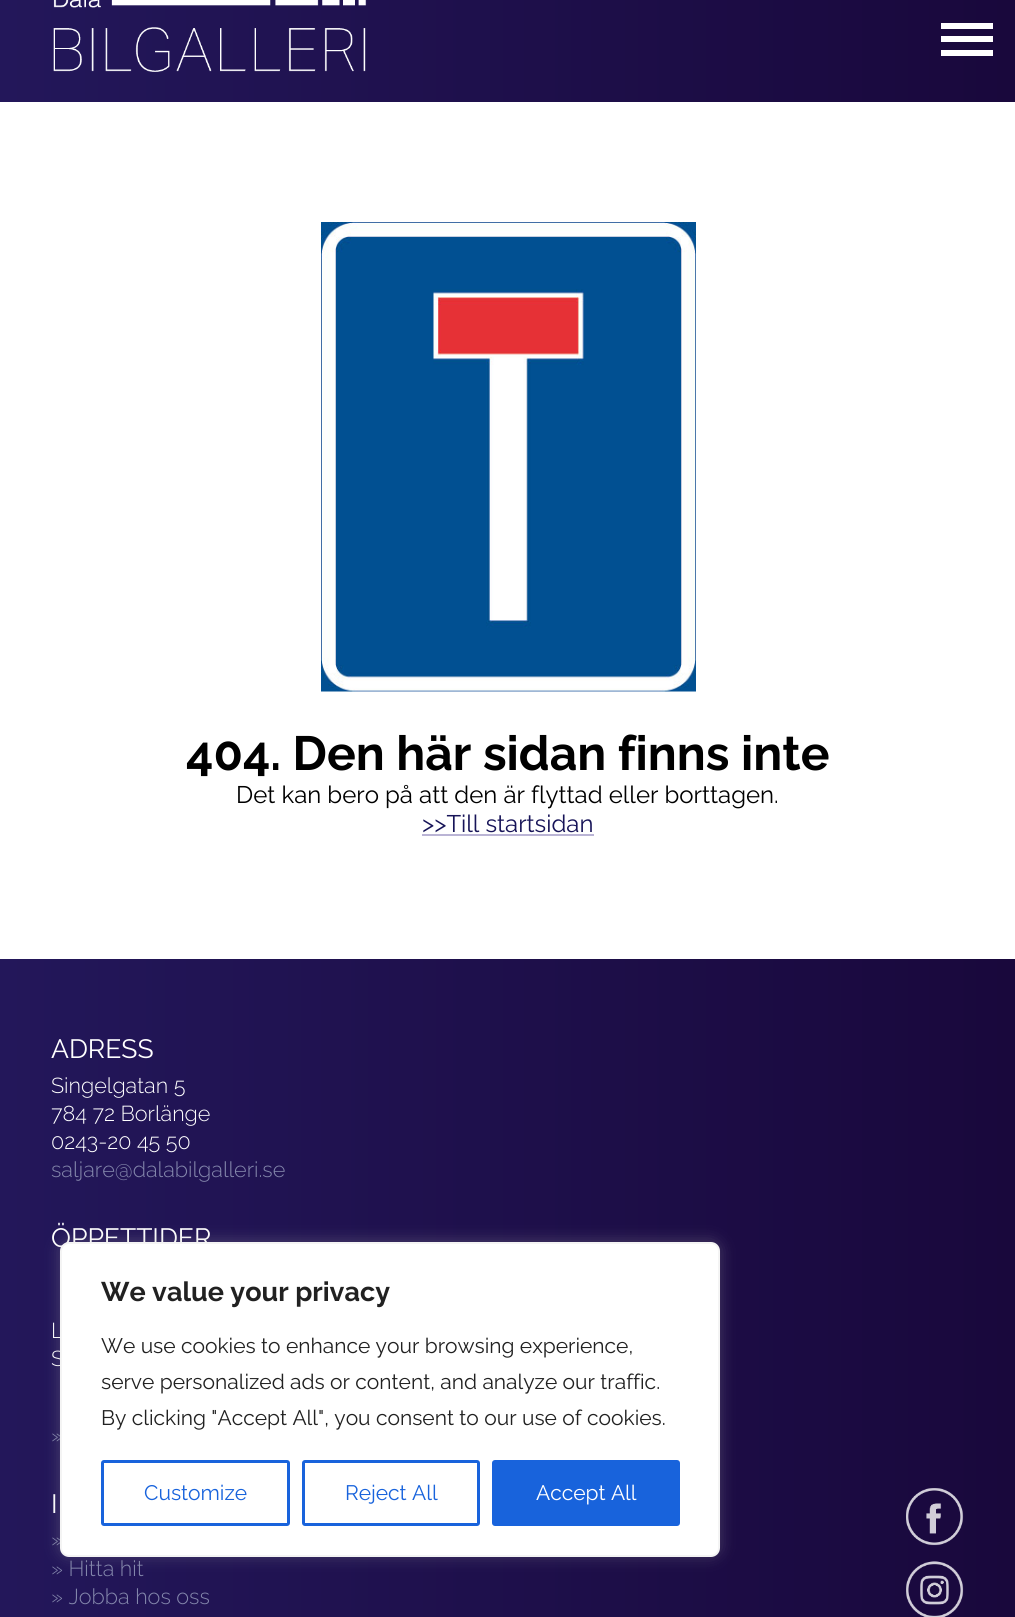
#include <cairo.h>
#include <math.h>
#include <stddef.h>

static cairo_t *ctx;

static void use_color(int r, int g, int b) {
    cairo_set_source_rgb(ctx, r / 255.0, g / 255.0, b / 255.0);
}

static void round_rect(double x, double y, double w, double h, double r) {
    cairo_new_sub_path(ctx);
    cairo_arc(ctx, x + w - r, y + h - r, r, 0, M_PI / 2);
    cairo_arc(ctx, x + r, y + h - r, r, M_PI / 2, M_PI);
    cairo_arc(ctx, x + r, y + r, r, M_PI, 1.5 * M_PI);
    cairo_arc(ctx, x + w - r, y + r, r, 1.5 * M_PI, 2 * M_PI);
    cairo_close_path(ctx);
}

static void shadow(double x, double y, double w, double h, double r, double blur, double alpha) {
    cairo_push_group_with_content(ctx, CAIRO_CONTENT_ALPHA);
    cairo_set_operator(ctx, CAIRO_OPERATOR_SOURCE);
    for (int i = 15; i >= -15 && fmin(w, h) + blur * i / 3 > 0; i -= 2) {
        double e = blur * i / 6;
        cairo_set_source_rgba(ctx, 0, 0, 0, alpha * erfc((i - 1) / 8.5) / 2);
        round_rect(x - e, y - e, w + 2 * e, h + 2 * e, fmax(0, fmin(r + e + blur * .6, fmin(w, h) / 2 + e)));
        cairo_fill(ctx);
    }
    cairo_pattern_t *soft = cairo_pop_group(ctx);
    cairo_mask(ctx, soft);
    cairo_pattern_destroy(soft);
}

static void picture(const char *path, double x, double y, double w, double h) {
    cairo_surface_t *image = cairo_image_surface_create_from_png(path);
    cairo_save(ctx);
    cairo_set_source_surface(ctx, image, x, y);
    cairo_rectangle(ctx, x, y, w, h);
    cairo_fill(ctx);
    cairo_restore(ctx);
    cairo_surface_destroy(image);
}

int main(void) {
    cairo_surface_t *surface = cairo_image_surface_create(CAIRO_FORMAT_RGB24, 1015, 1617);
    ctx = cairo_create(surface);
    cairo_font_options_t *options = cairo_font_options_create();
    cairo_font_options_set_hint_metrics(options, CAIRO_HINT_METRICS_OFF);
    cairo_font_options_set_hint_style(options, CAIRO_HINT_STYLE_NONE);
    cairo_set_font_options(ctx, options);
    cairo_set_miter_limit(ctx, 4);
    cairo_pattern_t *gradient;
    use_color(255, 255, 255);
    cairo_paint(ctx);
    gradient = cairo_pattern_create_linear(0, 27, 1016, 27);
    cairo_pattern_add_color_stop_rgba(gradient, 0, 0.137, 0.09, 0.353, 1);
    cairo_pattern_add_color_stop_rgba(gradient, 1, 0.098, 0.031, 0.235, 1);
    cairo_set_source(ctx, gradient);
    cairo_pattern_destroy(gradient);
    cairo_rectangle(ctx, 0, 0, 1015, 102);
    cairo_fill(ctx);
    picture("img1.png", 53, 0, 314, 72);
    use_color(255, 255, 255);
    cairo_rectangle(ctx, 941, 23, 52, 6);
    cairo_fill(ctx);
    cairo_rectangle(ctx, 941, 36, 52, 6);
    cairo_fill(ctx);
    cairo_rectangle(ctx, 941, 50, 52, 6);
    cairo_fill(ctx);
    picture("img2.png", 321, 222, 375, 470);
    cairo_select_font_face(ctx, "Raleway", CAIRO_FONT_SLANT_NORMAL, CAIRO_FONT_WEIGHT_BOLD);
    cairo_set_font_size(ctx, 48);
    use_color(0, 0, 0);
    cairo_move_to(ctx, 186, 770);
    cairo_show_text(ctx, "404. Den här sidan finns inte");
    cairo_select_font_face(ctx, "Raleway", CAIRO_FONT_SLANT_NORMAL, CAIRO_FONT_WEIGHT_NORMAL);
    cairo_set_font_size(ctx, 24);
    cairo_move_to(ctx, 236, 803);
    cairo_show_text(ctx, "Det kan bero på att den är flyttad eller borttagen.");
    use_color(23, 20, 88);
    cairo_move_to(ctx, 422, 832);
    cairo_show_text(ctx, ">>Till startsidan");
    use_color(186, 180, 213);
    cairo_rectangle(ctx, 422, 834, 172, 2);
    cairo_fill(ctx);
    gradient = cairo_pattern_create_linear(0, 1370, 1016, 1370);
    cairo_pattern_add_color_stop_rgba(gradient, 0, 0.137, 0.09, 0.353, 1);
    cairo_pattern_add_color_stop_rgba(gradient, 1, 0.098, 0.031, 0.235, 1);
    cairo_set_source(ctx, gradient);
    cairo_pattern_destroy(gradient);
    cairo_rectangle(ctx, 0, 959, 1015, 658);
    cairo_fill(ctx);
    cairo_set_font_size(ctx, 26.5);
    use_color(255, 255, 255);
    cairo_move_to(ctx, 51, 1058);
    cairo_show_text(ctx, "ADRESS");
    cairo_select_font_face(ctx, "Raleway Light", CAIRO_FONT_SLANT_NORMAL, CAIRO_FONT_WEIGHT_NORMAL);
    cairo_set_font_size(ctx, 21.6);
    cairo_move_to(ctx, 51, 1093);
    cairo_show_text(ctx, "Singelgatan 5");
    cairo_move_to(ctx, 51, 1121);
    cairo_show_text(ctx, "784 72 Borlänge");
    cairo_move_to(ctx, 51, 1149);
    cairo_show_text(ctx, "0243-20 45 50");
    use_color(131, 134, 171);
    cairo_move_to(ctx, 51, 1177);
    cairo_show_text(ctx, "saljare@dalabilgalleri.se");
    cairo_select_font_face(ctx, "Raleway", CAIRO_FONT_SLANT_NORMAL, CAIRO_FONT_WEIGHT_NORMAL);
    cairo_set_font_size(ctx, 26.5);
    use_color(255, 255, 255);
    cairo_move_to(ctx, 51, 1247);
    cairo_show_text(ctx, "ÖPPETTIDER");
    cairo_select_font_face(ctx, "Raleway Light", CAIRO_FONT_SLANT_NORMAL, CAIRO_FONT_WEIGHT_NORMAL);
    cairo_set_font_size(ctx, 21.6);
    cairo_move_to(ctx, 51, 1338);
    cairo_show_text(ctx, "L");
    cairo_move_to(ctx, 51, 1366);
    cairo_show_text(ctx, "S");
    use_color(131, 134, 171);
    cairo_move_to(ctx, 51, 1443);
    cairo_show_text(ctx, "»");
    cairo_select_font_face(ctx, "Raleway", CAIRO_FONT_SLANT_NORMAL, CAIRO_FONT_WEIGHT_NORMAL);
    cairo_set_font_size(ctx, 26.5);
    use_color(255, 255, 255);
    cairo_move_to(ctx, 51, 1513);
    cairo_show_text(ctx, "I");
    cairo_select_font_face(ctx, "Raleway Light", CAIRO_FONT_SLANT_NORMAL, CAIRO_FONT_WEIGHT_NORMAL);
    cairo_set_font_size(ctx, 21.6);
    use_color(131, 134, 171);
    cairo_move_to(ctx, 51, 1547);
    cairo_show_text(ctx, "»");
    cairo_move_to(ctx, 51, 1576);
    cairo_show_text(ctx, "» Hitta hit");
    cairo_move_to(ctx, 51, 1604);
    cairo_show_text(ctx, "» Jobba hos oss");
    picture("img3.png", 906, 1488, 58, 58);
    picture("img4.png", 906, 1561, 58, 56);
    use_color(172, 171, 171);
    shadow(60, 1241, 660, 315, 9, 7.5, 0.3);
    use_color(255, 255, 255);
    round_rect(61, 1243, 658, 313, 8);
    cairo_fill_preserve(ctx);
    use_color(244, 244, 244);
    cairo_stroke(ctx);
    cairo_select_font_face(ctx, "Raleway", CAIRO_FONT_SLANT_NORMAL, CAIRO_FONT_WEIGHT_BOLD);
    cairo_set_font_size(ctx, 27);
    use_color(33, 33, 33);
    cairo_move_to(ctx, 101, 1301);
    cairo_show_text(ctx, "We value your privacy");
    cairo_select_font_face(ctx, "Raleway", CAIRO_FONT_SLANT_NORMAL, CAIRO_FONT_WEIGHT_NORMAL);
    cairo_set_font_size(ctx, 21);
    cairo_move_to(ctx, 101, 1353);
    cairo_show_text(ctx, "We use cookies to enhance your browsing experience,");
    cairo_move_to(ctx, 101, 1389);
    cairo_show_text(ctx, "serve personalized ads or content, and analyze our traffic.");
    cairo_move_to(ctx, 101, 1425);
    cairo_show_text(ctx, "By clicking \"Accept All\", you consent to our use of cookies.");
    round_rect(102.5, 1461.5, 186, 63, 1.5);
    use_color(24, 99, 220);
    cairo_set_line_width(ctx, 3);
    cairo_stroke(ctx);
    cairo_move_to(ctx, 144, 1500);
    cairo_show_text(ctx, "Customize");
    round_rect(303.5, 1461.5, 175, 63, 1.5);
    cairo_stroke(ctx);
    cairo_move_to(ctx, 345, 1500);
    cairo_show_text(ctx, "Reject All");
    round_rect(493.5, 1461.5, 185, 63, 1.5);
    cairo_fill_preserve(ctx);
    cairo_stroke(ctx);
    use_color(255, 255, 255);
    cairo_move_to(ctx, 536, 1500);
    cairo_show_text(ctx, "Accept All");
    cairo_surface_write_to_png(surface, "result.png");
    cairo_font_options_destroy(options);
    cairo_destroy(ctx);
    cairo_surface_destroy(surface);
    return 0;
}
